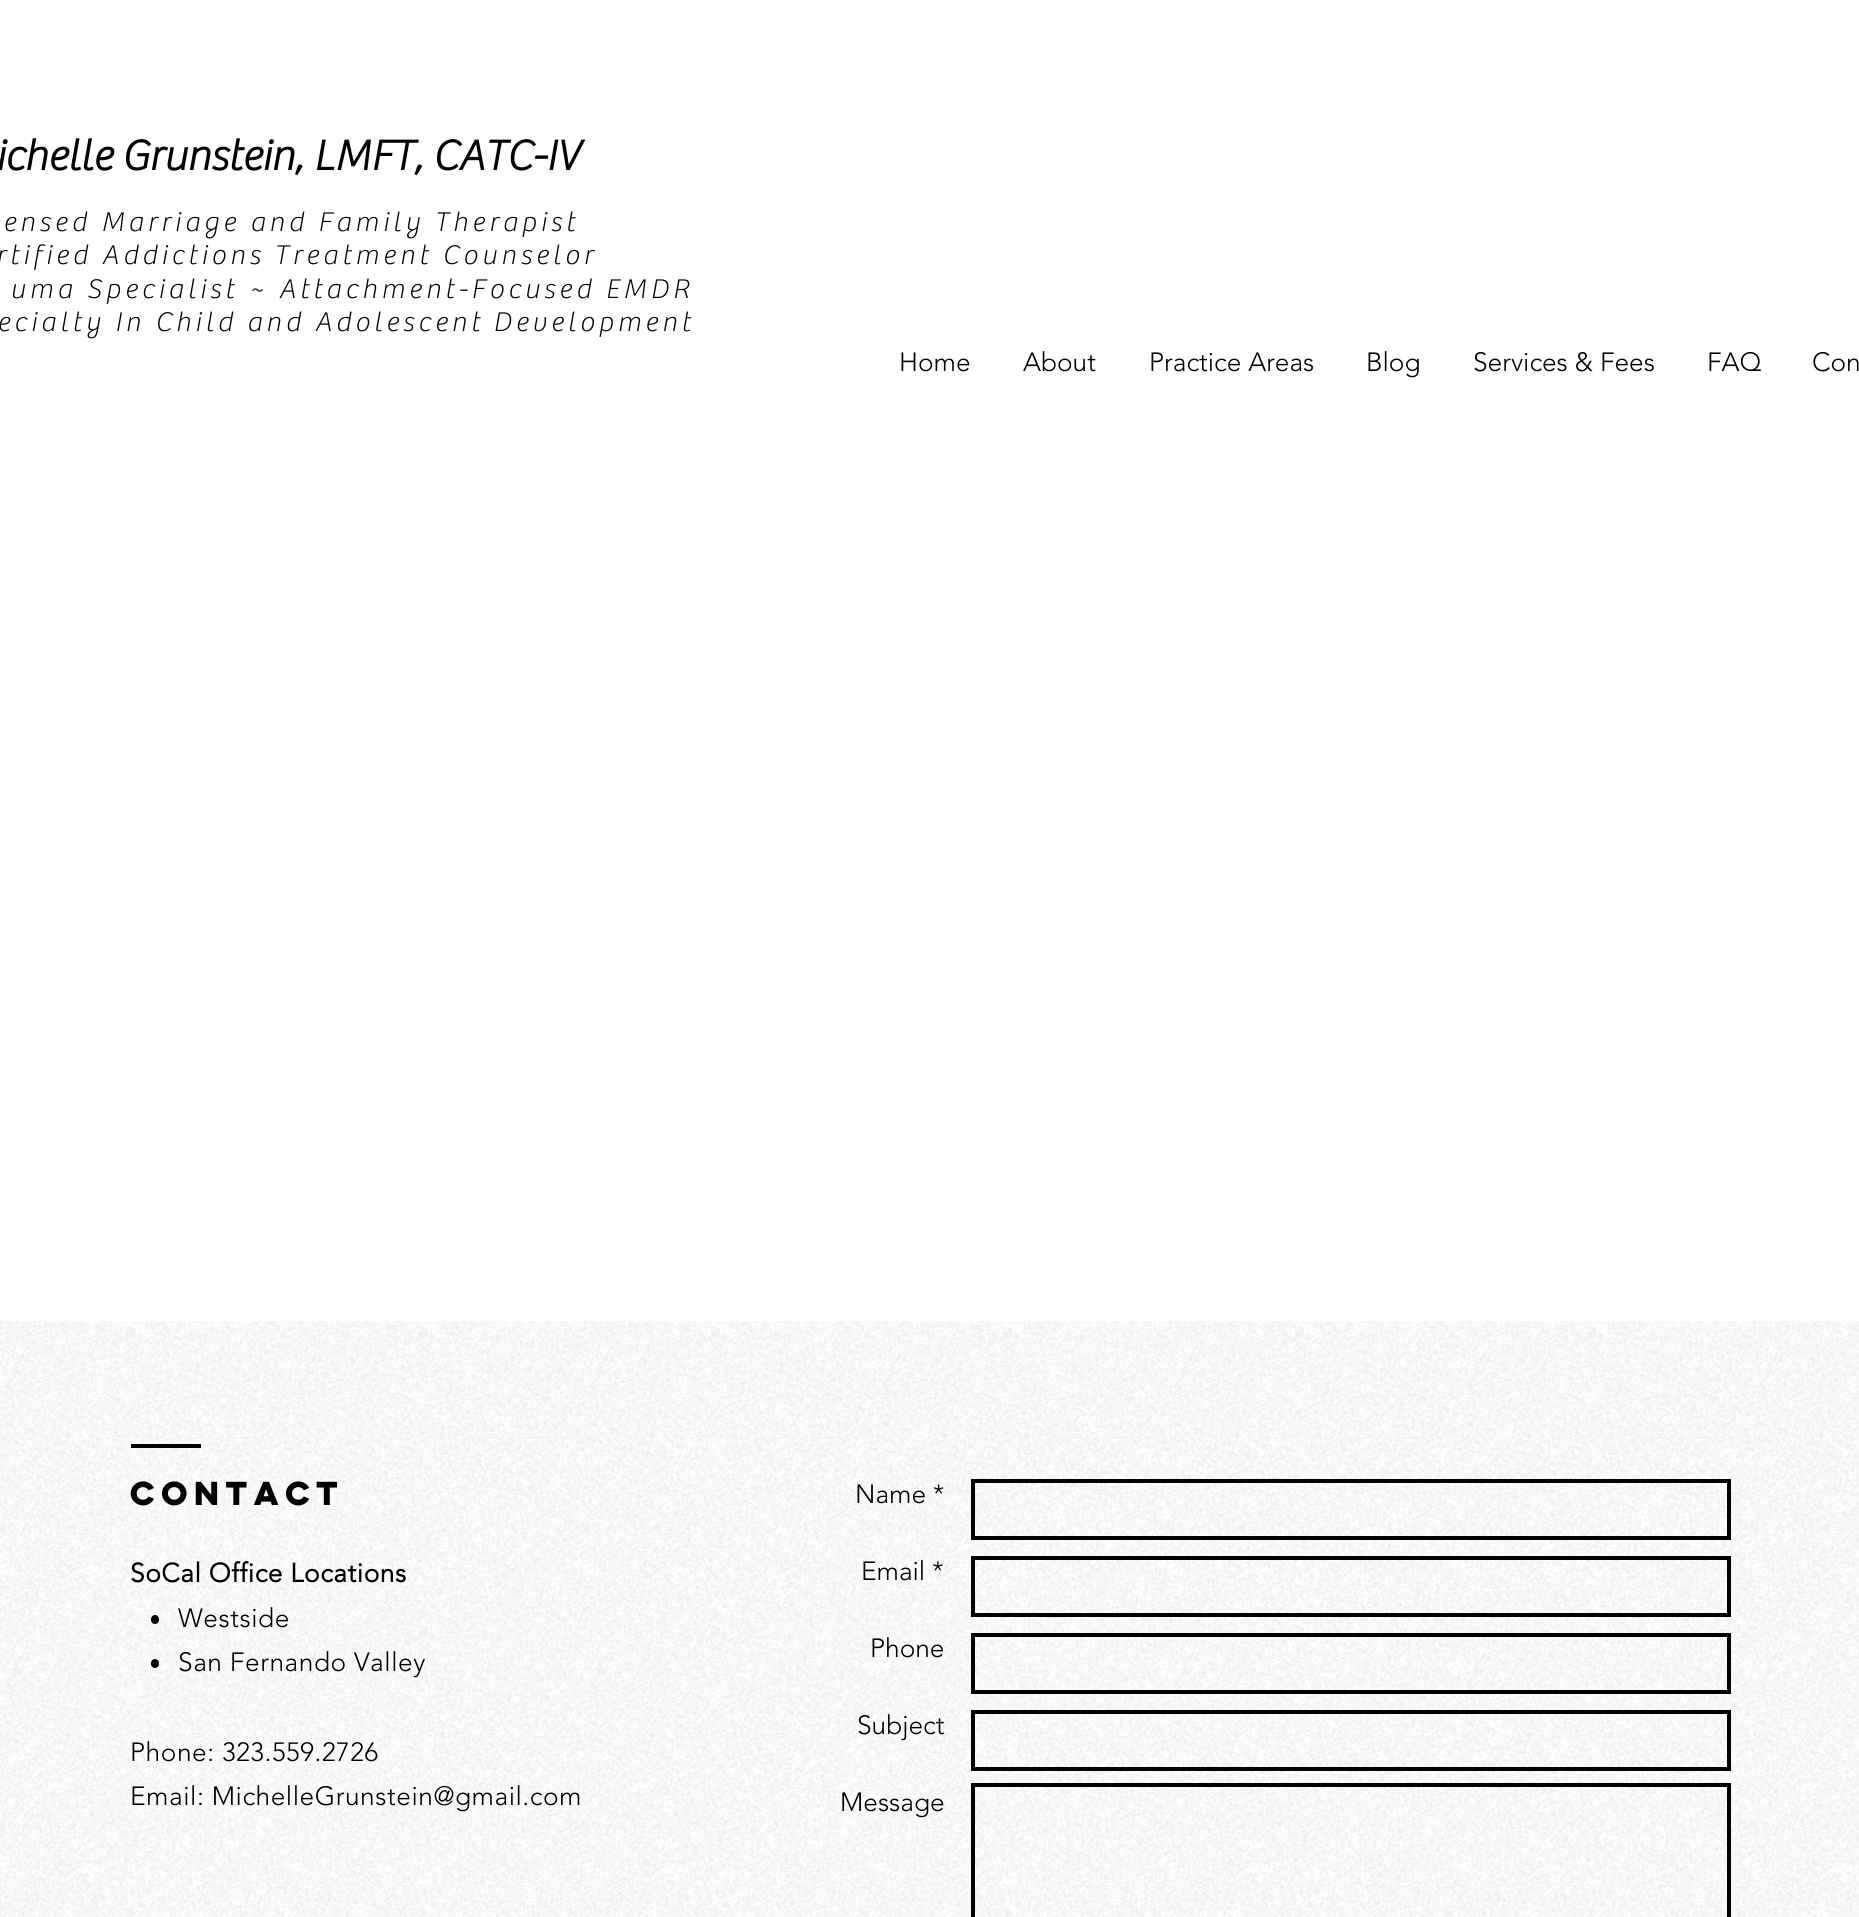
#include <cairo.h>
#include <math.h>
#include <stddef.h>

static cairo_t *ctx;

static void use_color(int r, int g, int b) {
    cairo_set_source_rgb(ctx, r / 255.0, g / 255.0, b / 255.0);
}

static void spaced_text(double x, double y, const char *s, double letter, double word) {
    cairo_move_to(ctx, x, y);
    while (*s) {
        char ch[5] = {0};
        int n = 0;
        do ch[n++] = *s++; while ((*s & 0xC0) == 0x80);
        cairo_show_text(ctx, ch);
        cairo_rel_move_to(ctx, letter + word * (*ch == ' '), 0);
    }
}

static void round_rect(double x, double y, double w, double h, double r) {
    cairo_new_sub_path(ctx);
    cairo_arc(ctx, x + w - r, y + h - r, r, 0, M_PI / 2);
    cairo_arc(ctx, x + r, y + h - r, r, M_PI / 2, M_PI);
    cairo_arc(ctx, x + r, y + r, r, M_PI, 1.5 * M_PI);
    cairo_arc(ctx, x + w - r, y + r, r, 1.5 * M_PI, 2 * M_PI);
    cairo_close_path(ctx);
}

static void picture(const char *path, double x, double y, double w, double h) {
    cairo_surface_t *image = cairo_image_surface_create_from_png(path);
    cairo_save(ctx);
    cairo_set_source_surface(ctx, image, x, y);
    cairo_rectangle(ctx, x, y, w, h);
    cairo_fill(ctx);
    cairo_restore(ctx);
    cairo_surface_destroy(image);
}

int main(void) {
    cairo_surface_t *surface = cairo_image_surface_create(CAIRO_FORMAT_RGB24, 1859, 1917);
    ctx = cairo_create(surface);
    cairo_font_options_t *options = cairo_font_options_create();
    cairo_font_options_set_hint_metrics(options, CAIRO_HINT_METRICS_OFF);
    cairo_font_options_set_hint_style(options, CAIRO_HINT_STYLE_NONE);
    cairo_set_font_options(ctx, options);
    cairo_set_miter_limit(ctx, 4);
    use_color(255, 255, 255);
    cairo_paint(ctx);
    cairo_select_font_face(ctx, "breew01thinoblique", CAIRO_FONT_SLANT_NORMAL, CAIRO_FONT_WEIGHT_BOLD);
    cairo_set_font_size(ctx, 43.75);
    use_color(0, 0, 0);
    cairo_move_to(ctx, -5, 170);
    cairo_show_text(ctx, "ichelle Grunstein, LMFT, CATC-IV");
    cairo_select_font_face(ctx, "breew01thinoblique Thin", CAIRO_FONT_SLANT_NORMAL, CAIRO_FONT_WEIGHT_NORMAL);
    cairo_set_font_size(ctx, 28);
    spaced_text(3, 231, "ensed Marriage and Family Therapist", 4.2, 0);
    spaced_text(-4, 264, "rtified Addictions", 4.2, 0);
    spaced_text(274, 264, "Treatment Counselor", 4.2, 0);
    spaced_text(10, 298, "uma Specialist ~ Attachment-Focused EMDR", 4.2, 0);
    spaced_text(-3, 331, "ecialty In Child and Adolescent", 4.2, 0);
    spaced_text(493, 331, "Development", 4.2, 0);
    cairo_select_font_face(ctx, "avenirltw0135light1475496 Light", CAIRO_FONT_SLANT_NORMAL, CAIRO_FONT_WEIGHT_NORMAL);
    cairo_set_font_size(ctx, 26.25);
    cairo_move_to(ctx, 899, 371);
    cairo_show_text(ctx, "Home");
    cairo_move_to(ctx, 1023, 371);
    cairo_show_text(ctx, "About");
    cairo_move_to(ctx, 1149, 371);
    cairo_show_text(ctx, "Practice Areas");
    cairo_move_to(ctx, 1366, 371);
    cairo_show_text(ctx, "Blog");
    cairo_move_to(ctx, 1473, 371);
    cairo_show_text(ctx, "Services & Fees");
    cairo_move_to(ctx, 1707, 371);
    cairo_show_text(ctx, "FAQ");
    cairo_move_to(ctx, 1812, 371);
    cairo_show_text(ctx, "Con");
    picture("img1.png", 0, 1321, 1859, 596);
    cairo_rectangle(ctx, 131, 1444, 70, 4);
    cairo_fill(ctx);
    cairo_select_font_face(ctx, "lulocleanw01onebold", CAIRO_FONT_SLANT_NORMAL, CAIRO_FONT_WEIGHT_BOLD);
    cairo_set_font_size(ctx, 29.75);
    cairo_move_to(ctx, 130, 1505);
    cairo_show_text(ctx, "Contact");
    cairo_select_font_face(ctx, "avenirltw0135light1475496 Light", CAIRO_FONT_SLANT_NORMAL, CAIRO_FONT_WEIGHT_NORMAL);
    cairo_set_font_size(ctx, 26.25);
    cairo_move_to(ctx, 855, 1503);
    cairo_show_text(ctx, "Name *");
    cairo_rectangle(ctx, 973, 1481, 756, 57);
    cairo_set_line_width(ctx, 4);
    cairo_stroke(ctx);
    cairo_move_to(ctx, 861, 1580);
    cairo_show_text(ctx, "Email *");
    cairo_rectangle(ctx, 973, 1558, 756, 57);
    cairo_stroke(ctx);
    cairo_move_to(ctx, 870, 1657);
    cairo_show_text(ctx, "Phone");
    cairo_rectangle(ctx, 973, 1635, 756, 57);
    cairo_stroke(ctx);
    cairo_move_to(ctx, 857, 1734);
    cairo_show_text(ctx, "Subject");
    cairo_rectangle(ctx, 973, 1712, 756, 57);
    cairo_stroke(ctx);
    cairo_move_to(ctx, 840, 1811);
    cairo_show_text(ctx, "Message");
    cairo_rectangle(ctx, 973, 1785, 756, 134);
    cairo_stroke(ctx);
    cairo_select_font_face(ctx, "avenirltw0135light1475496", CAIRO_FONT_SLANT_NORMAL, CAIRO_FONT_WEIGHT_BOLD);
    spaced_text(130, 1582, "SoCal Office Locations", 0.55, 0);
    round_rect(151, 1615, 8, 9, 4);
    cairo_fill(ctx);
    cairo_select_font_face(ctx, "avenirltw0135light1475496 Light", CAIRO_FONT_SLANT_NORMAL, CAIRO_FONT_WEIGHT_NORMAL);
    spaced_text(178, 1627, "Westside", 0.55, 0);
    round_rect(151, 1659, 8, 9, 4);
    cairo_fill(ctx);
    spaced_text(178, 1671, "San Fernando Valley", 0.55, 0);
    spaced_text(130, 1761, "Phone: 323.559.2726", 0.55, 0);
    spaced_text(130, 1805, "Email: MichelleGrunstein@gmail.com", 0.55, 0);
    cairo_surface_write_to_png(surface, "result.png");
    cairo_font_options_destroy(options);
    cairo_destroy(ctx);
    cairo_surface_destroy(surface);
    return 0;
}
